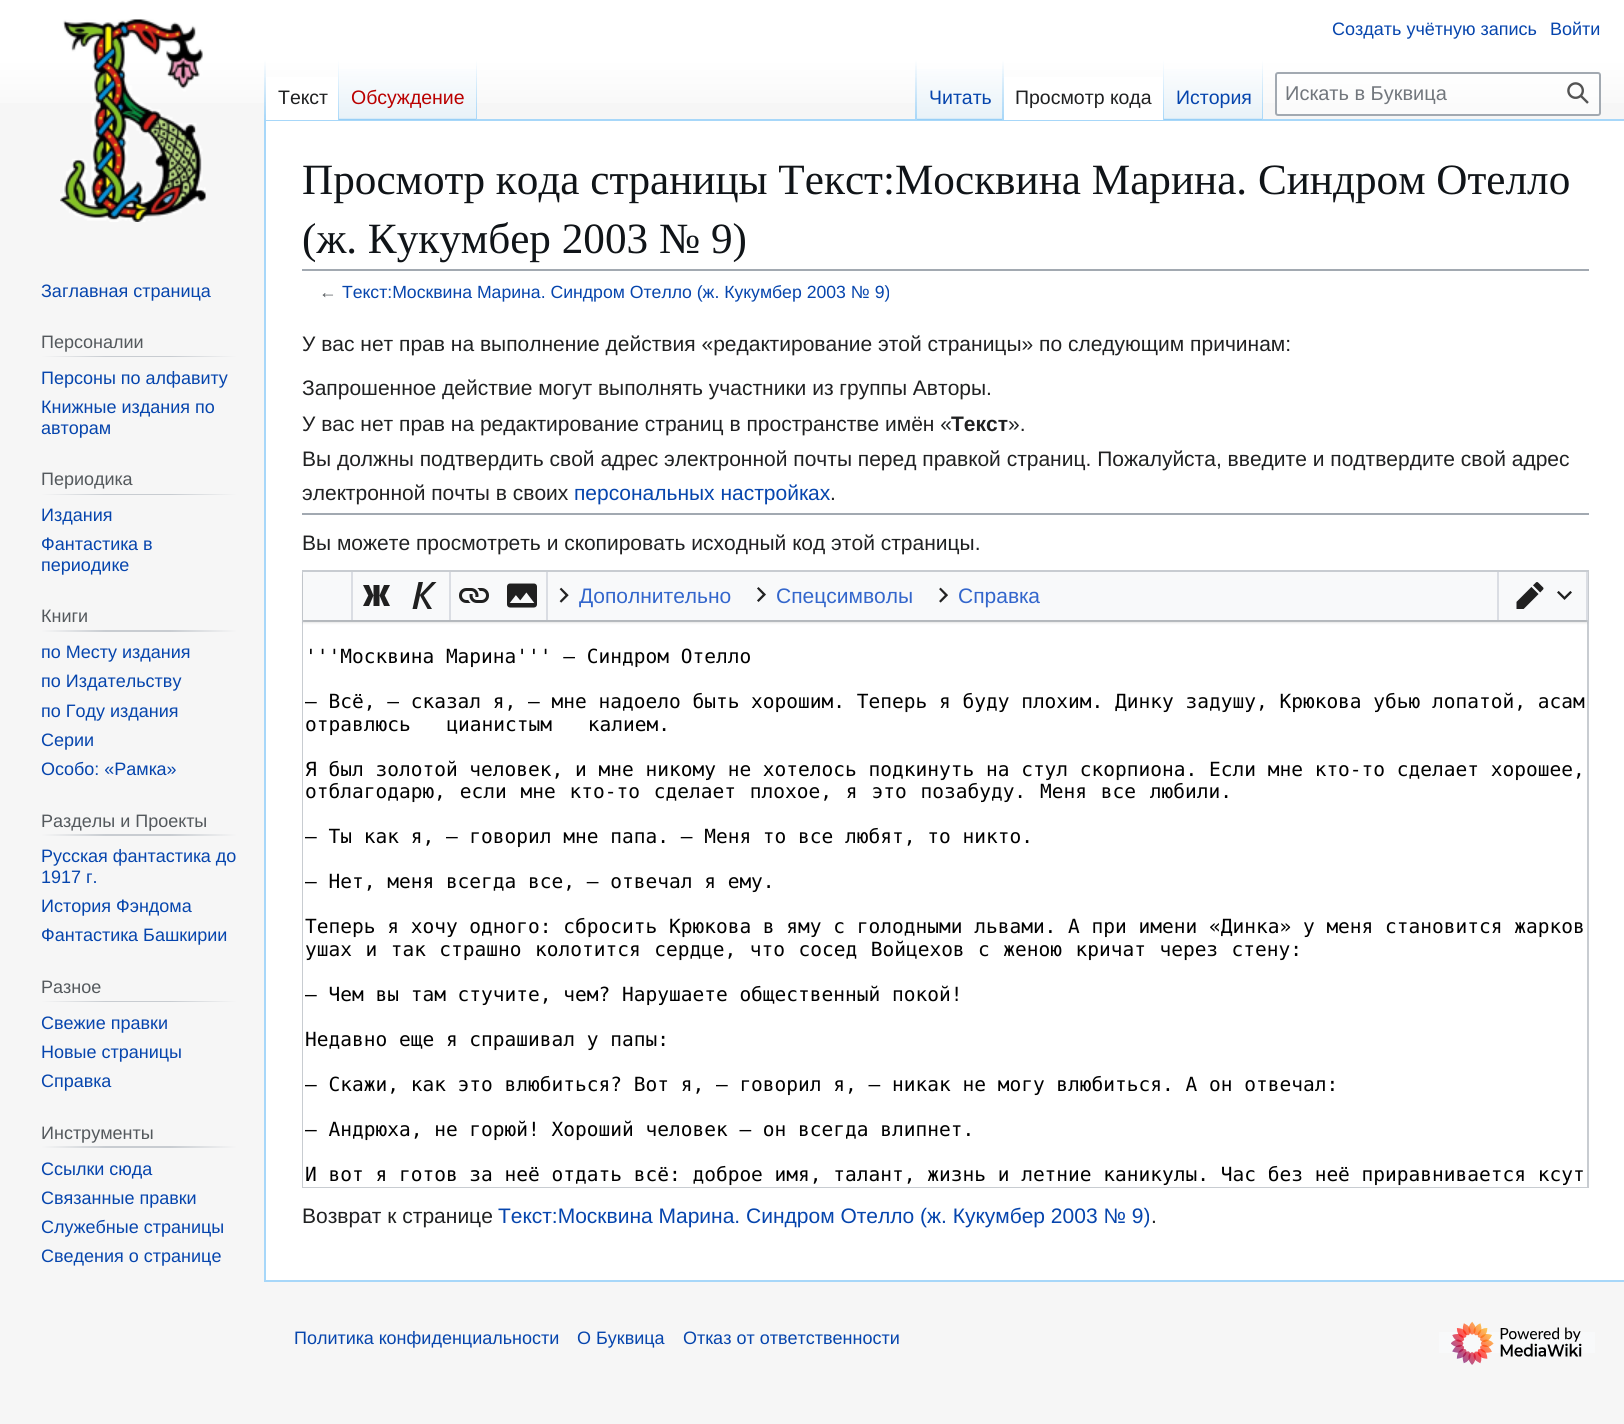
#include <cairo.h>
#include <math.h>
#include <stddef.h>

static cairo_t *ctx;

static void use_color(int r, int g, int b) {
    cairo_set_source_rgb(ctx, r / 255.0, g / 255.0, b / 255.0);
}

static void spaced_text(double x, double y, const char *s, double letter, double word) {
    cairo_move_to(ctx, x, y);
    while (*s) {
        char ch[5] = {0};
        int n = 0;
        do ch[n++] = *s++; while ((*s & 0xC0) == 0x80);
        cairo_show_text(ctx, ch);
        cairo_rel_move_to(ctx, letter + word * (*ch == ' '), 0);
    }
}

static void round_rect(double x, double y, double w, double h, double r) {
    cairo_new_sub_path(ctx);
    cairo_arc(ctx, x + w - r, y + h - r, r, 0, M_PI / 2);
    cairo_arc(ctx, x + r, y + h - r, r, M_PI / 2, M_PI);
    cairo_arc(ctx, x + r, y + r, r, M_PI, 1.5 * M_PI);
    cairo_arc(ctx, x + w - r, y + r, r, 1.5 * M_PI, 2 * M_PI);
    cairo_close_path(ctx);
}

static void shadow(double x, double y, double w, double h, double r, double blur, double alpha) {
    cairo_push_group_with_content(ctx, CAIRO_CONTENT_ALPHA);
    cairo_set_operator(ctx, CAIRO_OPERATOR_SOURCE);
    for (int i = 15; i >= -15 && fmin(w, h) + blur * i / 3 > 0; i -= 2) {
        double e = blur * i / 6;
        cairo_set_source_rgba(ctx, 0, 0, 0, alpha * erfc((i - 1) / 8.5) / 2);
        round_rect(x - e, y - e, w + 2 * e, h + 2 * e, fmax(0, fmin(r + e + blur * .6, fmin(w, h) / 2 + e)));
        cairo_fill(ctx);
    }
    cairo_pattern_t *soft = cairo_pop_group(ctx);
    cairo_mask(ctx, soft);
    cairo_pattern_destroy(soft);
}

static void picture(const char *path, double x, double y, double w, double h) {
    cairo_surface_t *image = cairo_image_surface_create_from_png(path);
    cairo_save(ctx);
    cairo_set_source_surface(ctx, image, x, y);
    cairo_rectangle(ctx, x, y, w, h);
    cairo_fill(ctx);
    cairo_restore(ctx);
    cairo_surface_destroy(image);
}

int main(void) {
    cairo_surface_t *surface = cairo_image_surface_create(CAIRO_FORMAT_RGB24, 1624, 1424);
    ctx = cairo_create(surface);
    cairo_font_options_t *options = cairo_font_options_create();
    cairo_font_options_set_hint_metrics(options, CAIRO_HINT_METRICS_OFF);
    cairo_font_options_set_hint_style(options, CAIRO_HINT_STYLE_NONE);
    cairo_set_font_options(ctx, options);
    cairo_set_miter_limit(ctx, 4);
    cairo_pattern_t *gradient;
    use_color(246, 246, 246);
    cairo_paint(ctx);
    gradient = cairo_pattern_create_linear(812, 0, 812, 120);
    cairo_pattern_add_color_stop_rgba(gradient, 0.5, 1, 1, 1, 1);
    cairo_pattern_add_color_stop_rgba(gradient, 1, 0.965, 0.965, 0.965, 1);
    cairo_set_source(ctx, gradient);
    cairo_pattern_destroy(gradient);
    cairo_rectangle(ctx, 0, 0, 1624, 103);
    cairo_fill(ctx);
    cairo_select_font_face(ctx, "Liberation Sans", CAIRO_FONT_SLANT_NORMAL, CAIRO_FONT_WEIGHT_NORMAL);
    cairo_set_font_size(ctx, 18);
    use_color(6, 69, 173);
    cairo_move_to(ctx, 1332, 35);
    cairo_show_text(ctx, "Создать учётную запись");
    cairo_move_to(ctx, 1550, 35);
    cairo_show_text(ctx, "Войти");
    use_color(167, 215, 249);
    cairo_rectangle(ctx, 264, 119, 1360, 2);
    cairo_fill(ctx);
    cairo_rectangle(ctx, 264, 1280, 1360, 2);
    cairo_fill(ctx);
    cairo_rectangle(ctx, 264, 119, 2, 1162);
    cairo_fill(ctx);
    gradient = cairo_pattern_create_linear(265, 60, 265, 120);
    cairo_pattern_add_color_stop_rgba(gradient, 0, 0.655, 0.843, 0.976, 0);
    cairo_pattern_add_color_stop_rgba(gradient, 1, 0.655, 0.843, 0.976, 1);
    cairo_set_source(ctx, gradient);
    cairo_pattern_destroy(gradient);
    cairo_rectangle(ctx, 264, 60, 2, 60);
    cairo_fill(ctx);
    use_color(255, 255, 255);
    cairo_rectangle(ctx, 266, 77, 72, 43);
    cairo_fill(ctx);
    gradient = cairo_pattern_create_linear(338, 60, 338, 120);
    cairo_pattern_add_color_stop_rgba(gradient, 0, 1, 1, 1, 1);
    cairo_pattern_add_color_stop_rgba(gradient, 1, 0.655, 0.843, 0.976, 1);
    cairo_set_source(ctx, gradient);
    cairo_pattern_destroy(gradient);
    cairo_rectangle(ctx, 338, 60, 1, 60);
    cairo_fill(ctx);
    cairo_set_font_size(ctx, 19.5);
    use_color(32, 33, 34);
    cairo_move_to(ctx, 278, 104);
    cairo_show_text(ctx, "Текст");
    gradient = cairo_pattern_create_linear(408, 120, 408, 60);
    cairo_pattern_add_color_stop_rgba(gradient, 0, 0.467, 0.757, 0.965, 1);
    cairo_pattern_add_color_stop_rgba(gradient, 0.03, 0.91, 0.949, 0.973, 1);
    cairo_pattern_add_color_stop_rgba(gradient, 1, 1, 1, 1, 1);
    cairo_set_source(ctx, gradient);
    cairo_pattern_destroy(gradient);
    cairo_rectangle(ctx, 339, 69, 138, 51);
    cairo_fill(ctx);
    gradient = cairo_pattern_create_linear(476, 60, 476, 120);
    cairo_pattern_add_color_stop_rgba(gradient, 0, 0.655, 0.843, 0.976, 0);
    cairo_pattern_add_color_stop_rgba(gradient, 1, 0.655, 0.843, 0.976, 1);
    cairo_set_source(ctx, gradient);
    cairo_pattern_destroy(gradient);
    cairo_rectangle(ctx, 476, 60, 1, 60);
    cairo_fill(ctx);
    use_color(186, 0, 0);
    cairo_move_to(ctx, 351, 104);
    cairo_show_text(ctx, "Обсуждение");
    gradient = cairo_pattern_create_linear(916, 60, 916, 120);
    cairo_pattern_add_color_stop_rgba(gradient, 0, 0.655, 0.843, 0.976, 0);
    cairo_pattern_add_color_stop_rgba(gradient, 1, 0.655, 0.843, 0.976, 1);
    cairo_set_source(ctx, gradient);
    cairo_pattern_destroy(gradient);
    cairo_rectangle(ctx, 915, 60, 2, 60);
    cairo_fill(ctx);
    gradient = cairo_pattern_create_linear(960, 120, 960, 60);
    cairo_pattern_add_color_stop_rgba(gradient, 0, 0.467, 0.757, 0.965, 1);
    cairo_pattern_add_color_stop_rgba(gradient, 0.03, 0.91, 0.949, 0.973, 1);
    cairo_pattern_add_color_stop_rgba(gradient, 1, 1, 1, 1, 1);
    cairo_set_source(ctx, gradient);
    cairo_pattern_destroy(gradient);
    cairo_rectangle(ctx, 917, 69, 87, 51);
    cairo_fill(ctx);
    gradient = cairo_pattern_create_linear(1003, 60, 1003, 120);
    cairo_pattern_add_color_stop_rgba(gradient, 0, 0.655, 0.843, 0.976, 0);
    cairo_pattern_add_color_stop_rgba(gradient, 1, 0.655, 0.843, 0.976, 1);
    cairo_set_source(ctx, gradient);
    cairo_pattern_destroy(gradient);
    cairo_rectangle(ctx, 1002, 60, 2, 60);
    cairo_fill(ctx);
    use_color(6, 69, 173);
    cairo_move_to(ctx, 929, 104);
    cairo_show_text(ctx, "Читать");
    use_color(255, 255, 255);
    cairo_rectangle(ctx, 1004, 77, 159, 43);
    cairo_fill(ctx);
    gradient = cairo_pattern_create_linear(1163, 60, 1163, 120);
    cairo_pattern_add_color_stop_rgba(gradient, 0, 1, 1, 1, 1);
    cairo_pattern_add_color_stop_rgba(gradient, 1, 0.655, 0.843, 0.976, 1);
    cairo_set_source(ctx, gradient);
    cairo_pattern_destroy(gradient);
    cairo_rectangle(ctx, 1163, 60, 1, 60);
    cairo_fill(ctx);
    use_color(32, 33, 34);
    cairo_move_to(ctx, 1015, 104);
    cairo_show_text(ctx, "Просмотр кода");
    gradient = cairo_pattern_create_linear(1214, 120, 1214, 60);
    cairo_pattern_add_color_stop_rgba(gradient, 0, 0.467, 0.757, 0.965, 1);
    cairo_pattern_add_color_stop_rgba(gradient, 0.03, 0.91, 0.949, 0.973, 1);
    cairo_pattern_add_color_stop_rgba(gradient, 1, 1, 1, 1, 1);
    cairo_set_source(ctx, gradient);
    cairo_pattern_destroy(gradient);
    cairo_rectangle(ctx, 1164, 69, 99, 51);
    cairo_fill(ctx);
    gradient = cairo_pattern_create_linear(1262, 60, 1262, 120);
    cairo_pattern_add_color_stop_rgba(gradient, 0, 0.655, 0.843, 0.976, 0);
    cairo_pattern_add_color_stop_rgba(gradient, 1, 0.655, 0.843, 0.976, 1);
    cairo_set_source(ctx, gradient);
    cairo_pattern_destroy(gradient);
    cairo_rectangle(ctx, 1262, 60, 1, 60);
    cairo_fill(ctx);
    use_color(6, 69, 173);
    cairo_move_to(ctx, 1176, 104);
    cairo_show_text(ctx, "История");
    cairo_set_source_rgba(ctx, 1, 1, 1, 0.5);
    round_rect(1276, 73, 324, 42, 2);
    cairo_fill_preserve(ctx);
    use_color(162, 169, 177);
    cairo_stroke(ctx);
    cairo_set_font_size(ctx, 20);
    use_color(114, 119, 125);
    cairo_move_to(ctx, 1285, 100);
    cairo_show_text(ctx, "Искать в Буквица");
    picture("img1.png", 1567, 82, 22, 22);
    picture("img2.png", 60, 19, 146, 203);
    cairo_set_font_size(ctx, 18);
    use_color(6, 69, 173);
    cairo_move_to(ctx, 41, 297);
    cairo_show_text(ctx, "Заглавная страница");
    gradient = cairo_pattern_create_linear(41, 356, 237, 356);
    cairo_pattern_add_color_stop_rgba(gradient, 0, 0.965, 0.965, 0.965, 1);
    cairo_pattern_add_color_stop_rgba(gradient, 0.33, 0.784, 0.8, 0.82, 1);
    cairo_pattern_add_color_stop_rgba(gradient, 0.66, 0.784, 0.8, 0.82, 1);
    cairo_pattern_add_color_stop_rgba(gradient, 1, 0.965, 0.965, 0.965, 1);
    cairo_set_source(ctx, gradient);
    cairo_pattern_destroy(gradient);
    cairo_rectangle(ctx, 41, 356, 196, 1);
    cairo_fill(ctx);
    use_color(84, 89, 93);
    cairo_move_to(ctx, 41, 348);
    cairo_show_text(ctx, "Персоналии");
    use_color(6, 69, 173);
    cairo_move_to(ctx, 41, 384);
    cairo_show_text(ctx, "Персоны по алфавиту");
    cairo_move_to(ctx, 41, 413);
    cairo_show_text(ctx, "Книжные издания по");
    cairo_move_to(ctx, 41, 434);
    cairo_show_text(ctx, "авторам");
    gradient = cairo_pattern_create_linear(41, 494, 237, 494);
    cairo_pattern_add_color_stop_rgba(gradient, 0, 0.965, 0.965, 0.965, 1);
    cairo_pattern_add_color_stop_rgba(gradient, 0.33, 0.784, 0.8, 0.82, 1);
    cairo_pattern_add_color_stop_rgba(gradient, 0.66, 0.784, 0.8, 0.82, 1);
    cairo_pattern_add_color_stop_rgba(gradient, 1, 0.965, 0.965, 0.965, 1);
    cairo_set_source(ctx, gradient);
    cairo_pattern_destroy(gradient);
    cairo_rectangle(ctx, 41, 494, 196, 1);
    cairo_fill(ctx);
    use_color(84, 89, 93);
    cairo_move_to(ctx, 41, 485);
    cairo_show_text(ctx, "Периодика");
    use_color(6, 69, 173);
    cairo_move_to(ctx, 41, 521);
    cairo_show_text(ctx, "Издания");
    cairo_move_to(ctx, 41, 550);
    cairo_show_text(ctx, "Фантастика в");
    cairo_move_to(ctx, 41, 571);
    cairo_show_text(ctx, "периодике");
    gradient = cairo_pattern_create_linear(41, 631, 237, 631);
    cairo_pattern_add_color_stop_rgba(gradient, 0, 0.965, 0.965, 0.965, 1);
    cairo_pattern_add_color_stop_rgba(gradient, 0.33, 0.784, 0.8, 0.82, 1);
    cairo_pattern_add_color_stop_rgba(gradient, 0.66, 0.784, 0.8, 0.82, 1);
    cairo_pattern_add_color_stop_rgba(gradient, 1, 0.965, 0.965, 0.965, 1);
    cairo_set_source(ctx, gradient);
    cairo_pattern_destroy(gradient);
    cairo_rectangle(ctx, 41, 630, 196, 2);
    cairo_fill(ctx);
    use_color(84, 89, 93);
    cairo_move_to(ctx, 41, 622);
    cairo_show_text(ctx, "Книги");
    use_color(6, 69, 173);
    cairo_move_to(ctx, 41, 658);
    cairo_show_text(ctx, "по Месту издания");
    cairo_move_to(ctx, 41, 687);
    cairo_show_text(ctx, "по Издательству");
    cairo_move_to(ctx, 41, 717);
    cairo_show_text(ctx, "по Году издания");
    cairo_move_to(ctx, 41, 746);
    cairo_show_text(ctx, "Серии");
    cairo_move_to(ctx, 41, 775);
    cairo_show_text(ctx, "Особо: «Рамка»");
    gradient = cairo_pattern_create_linear(41, 835, 237, 835);
    cairo_pattern_add_color_stop_rgba(gradient, 0, 0.965, 0.965, 0.965, 1);
    cairo_pattern_add_color_stop_rgba(gradient, 0.33, 0.784, 0.8, 0.82, 1);
    cairo_pattern_add_color_stop_rgba(gradient, 0.66, 0.784, 0.8, 0.82, 1);
    cairo_pattern_add_color_stop_rgba(gradient, 1, 0.965, 0.965, 0.965, 1);
    cairo_set_source(ctx, gradient);
    cairo_pattern_destroy(gradient);
    cairo_rectangle(ctx, 41, 834, 196, 2);
    cairo_fill(ctx);
    use_color(84, 89, 93);
    cairo_move_to(ctx, 41, 827);
    cairo_show_text(ctx, "Разделы и Проекты");
    use_color(6, 69, 173);
    cairo_move_to(ctx, 41, 862);
    cairo_show_text(ctx, "Русская фантастика до");
    cairo_move_to(ctx, 41, 883);
    cairo_show_text(ctx, "1917 г.");
    cairo_move_to(ctx, 41, 912);
    cairo_show_text(ctx, "История Фэндома");
    cairo_move_to(ctx, 41, 941);
    cairo_show_text(ctx, "Фантастика Башкирии");
    gradient = cairo_pattern_create_linear(41, 1001, 237, 1001);
    cairo_pattern_add_color_stop_rgba(gradient, 0, 0.965, 0.965, 0.965, 1);
    cairo_pattern_add_color_stop_rgba(gradient, 0.33, 0.784, 0.8, 0.82, 1);
    cairo_pattern_add_color_stop_rgba(gradient, 0.66, 0.784, 0.8, 0.82, 1);
    cairo_pattern_add_color_stop_rgba(gradient, 1, 0.965, 0.965, 0.965, 1);
    cairo_set_source(ctx, gradient);
    cairo_pattern_destroy(gradient);
    cairo_rectangle(ctx, 41, 1001, 196, 1);
    cairo_fill(ctx);
    use_color(84, 89, 93);
    cairo_move_to(ctx, 41, 993);
    cairo_show_text(ctx, "Разное");
    use_color(6, 69, 173);
    cairo_move_to(ctx, 41, 1029);
    cairo_show_text(ctx, "Свежие правки");
    cairo_move_to(ctx, 41, 1058);
    cairo_show_text(ctx, "Новые страницы");
    cairo_move_to(ctx, 41, 1087);
    cairo_show_text(ctx, "Справка");
    gradient = cairo_pattern_create_linear(41, 1147, 237, 1147);
    cairo_pattern_add_color_stop_rgba(gradient, 0, 0.965, 0.965, 0.965, 1);
    cairo_pattern_add_color_stop_rgba(gradient, 0.33, 0.784, 0.8, 0.82, 1);
    cairo_pattern_add_color_stop_rgba(gradient, 0.66, 0.784, 0.8, 0.82, 1);
    cairo_pattern_add_color_stop_rgba(gradient, 1, 0.965, 0.965, 0.965, 1);
    cairo_set_source(ctx, gradient);
    cairo_pattern_destroy(gradient);
    cairo_rectangle(ctx, 41, 1146, 196, 2);
    cairo_fill(ctx);
    use_color(84, 89, 93);
    cairo_move_to(ctx, 41, 1139);
    cairo_show_text(ctx, "Инструменты");
    use_color(6, 69, 173);
    cairo_move_to(ctx, 41, 1175);
    cairo_show_text(ctx, "Ссылки сюда");
    cairo_move_to(ctx, 41, 1204);
    cairo_show_text(ctx, "Связанные правки");
    cairo_move_to(ctx, 41, 1233);
    cairo_show_text(ctx, "Служебные страницы");
    cairo_move_to(ctx, 41, 1262);
    cairo_show_text(ctx, "Сведения о странице");
    use_color(255, 255, 255);
    cairo_rectangle(ctx, 266, 121, 1358, 1159);
    cairo_fill(ctx);
    use_color(162, 169, 177);
    cairo_rectangle(ctx, 302, 269, 1287, 2);
    cairo_fill(ctx);
    cairo_select_font_face(ctx, "Liberation Serif", CAIRO_FONT_SLANT_NORMAL, CAIRO_FONT_WEIGHT_NORMAL);
    cairo_set_font_size(ctx, 43.2);
    use_color(16, 20, 24);
    cairo_move_to(ctx, 302, 194);
    cairo_show_text(ctx, "Просмотр кода страницы Текст:Москвина Марина. Синдром Отелло");
    cairo_move_to(ctx, 302, 253);
    cairo_show_text(ctx, "(ж. Кукумбер 2003 № 9)");
    cairo_select_font_face(ctx, "Liberation Sans", CAIRO_FONT_SLANT_NORMAL, CAIRO_FONT_WEIGHT_NORMAL);
    cairo_set_font_size(ctx, 17.65);
    use_color(84, 89, 93);
    cairo_move_to(ctx, 319, 298);
    cairo_show_text(ctx, "←");
    use_color(6, 69, 173);
    cairo_move_to(ctx, 342, 298);
    cairo_show_text(ctx, "Текст:Москвина Марина. Синдром Отелло (ж. Кукумбер 2003 № 9)");
    cairo_set_font_size(ctx, 21);
    use_color(32, 33, 34);
    cairo_move_to(ctx, 302, 351);
    cairo_show_text(ctx, "У вас нет прав на выполнение действия «редактирование этой страницы» по следующим причинам:");
    cairo_move_to(ctx, 302, 395);
    cairo_show_text(ctx, "Запрошенное действие могут выполнять участники из группы Авторы.");
    cairo_move_to(ctx, 302, 431);
    cairo_show_text(ctx, "У вас нет прав на редактирование страниц в пространстве имён «");
    cairo_select_font_face(ctx, "Liberation Sans", CAIRO_FONT_SLANT_NORMAL, CAIRO_FONT_WEIGHT_BOLD);
    cairo_move_to(ctx, 951, 431);
    cairo_show_text(ctx, "Текст");
    cairo_select_font_face(ctx, "Liberation Sans", CAIRO_FONT_SLANT_NORMAL, CAIRO_FONT_WEIGHT_NORMAL);
    cairo_move_to(ctx, 1008, 431);
    cairo_show_text(ctx, "».");
    cairo_move_to(ctx, 302, 466);
    cairo_show_text(ctx, "Вы должны подтвердить свой адрес электронной почты перед правкой страниц. Пожалуйста, введите и подтвердите свой адрес");
    cairo_move_to(ctx, 302, 500);
    cairo_show_text(ctx, "электронной почты в своих");
    use_color(6, 69, 173);
    cairo_move_to(ctx, 574, 500);
    cairo_show_text(ctx, "персональных настройках");
    use_color(32, 33, 34);
    cairo_move_to(ctx, 830, 500);
    cairo_show_text(ctx, ".");
    use_color(162, 169, 177);
    cairo_rectangle(ctx, 302, 513, 1287, 2);
    cairo_fill(ctx);
    use_color(32, 33, 34);
    cairo_move_to(ctx, 302, 550);
    cairo_show_text(ctx, "Вы можете просмотреть и скопировать исходный код этой страницы.");
    cairo_rectangle(ctx, 303, 571, 1285, 616);
    use_color(200, 204, 209);
    cairo_stroke(ctx);
    cairo_rectangle(ctx, 303, 620, 1284, 2);
    cairo_fill(ctx);
    use_color(255, 255, 255);
    cairo_rectangle(ctx, 303, 622, 1284, 565);
    cairo_fill(ctx);
    use_color(0, 0, 0);
    shadow(303, 575, 1284, 48, 0, 1, 0.1);
    use_color(248, 249, 250);
    cairo_rectangle(ctx, 303, 572, 1283, 48);
    cairo_fill(ctx);
    use_color(218, 221, 227);
    cairo_rectangle(ctx, 351, 572, 2, 48);
    cairo_fill(ctx);
    cairo_rectangle(ctx, 449, 572, 2, 48);
    cairo_fill(ctx);
    picture("img3.png", 363, 585, 27, 21);
    picture("img4.png", 412, 582, 25, 27);
    cairo_rectangle(ctx, 546, 572, 2, 48);
    cairo_fill(ctx);
    picture("img5.png", 459, 588, 30, 15);
    picture("img6.png", 507, 583, 30, 25);
    picture("img7.png", 559, 587, 10, 16);
    use_color(51, 102, 204);
    cairo_move_to(ctx, 579, 603);
    cairo_show_text(ctx, "Дополнительно");
    picture("img8.png", 757, 587, 9, 15);
    cairo_move_to(ctx, 776, 603);
    cairo_show_text(ctx, "Спецсимволы");
    picture("img9.png", 939, 587, 9, 16);
    cairo_move_to(ctx, 958, 603);
    cairo_show_text(ctx, "Справка");
    use_color(218, 221, 227);
    cairo_rectangle(ctx, 1586, 572, 2, 48);
    cairo_fill(ctx);
    cairo_rectangle(ctx, 1497, 572, 2, 48);
    cairo_fill(ctx);
    picture("img10.png", 1516, 582, 28, 27);
    picture("img11.png", 1557, 591, 15, 9);
    cairo_select_font_face(ctx, "DejaVu Sans Mono", CAIRO_FONT_SLANT_NORMAL, CAIRO_FONT_WEIGHT_NORMAL);
    cairo_set_font_size(ctx, 19.5);
    use_color(0, 0, 0);
    cairo_move_to(ctx, 305, 663);
    cairo_show_text(ctx, "'''Москвина Марина''' — Синдром Отелло");
    cairo_move_to(ctx, 305, 708);
    cairo_show_text(ctx, "– Всё, – сказал я, – мне надоело быть хорошим. Теперь я буду плохим. Динку задушу, Крюкова убью лопатой, асам");
    spaced_text(305, 731, "отравлюсь цианистым калием.", 0, 24);
    cairo_move_to(ctx, 305, 776);
    cairo_show_text(ctx, "Я был золотой человек, и мне никому не хотелось подкинуть на стул скорпиона. Если мне кто-то сделает хорошее,");
    spaced_text(305, 798, "отблагодарю, если мне кто-то сделает плохое, я это позабуду. Меня все любили.", 0, 2.1);
    cairo_move_to(ctx, 305, 843);
    cairo_show_text(ctx, "– Ты как я, – говорил мне папа. – Меня то все любят, то никто.");
    cairo_move_to(ctx, 305, 888);
    cairo_show_text(ctx, "– Нет, меня всегда все, – отвечал я ему.");
    cairo_move_to(ctx, 305, 933);
    cairo_show_text(ctx, "Теперь я хочу одного: сбросить Крюкова в яму с голодными львами. А при имени «Динка» у меня становится жарков");
    spaced_text(305, 956, "ушах и так страшно колотится сердце, что сосед Войцехов с женою кричат через стену:", 0, 1.75);
    cairo_move_to(ctx, 305, 1001);
    cairo_show_text(ctx, "– Чем вы там стучите, чем? Нарушаете общественный покой!");
    cairo_move_to(ctx, 305, 1046);
    cairo_show_text(ctx, "Недавно еще я спрашивал у папы:");
    cairo_move_to(ctx, 305, 1091);
    cairo_show_text(ctx, "– Скажи, как это влюбиться? Вот я, – говорил я, – никак не могу влюбиться. А он отвечал:");
    cairo_move_to(ctx, 305, 1136);
    cairo_show_text(ctx, "– Андрюха, не горюй! Хороший человек – он всегда влипнет.");
    cairo_move_to(ctx, 305, 1181);
    cairo_show_text(ctx, "И вот я готов за неё отдать всё: доброе имя, талант, жизнь и летние каникулы. Час без неё приравнивается ксут");
    cairo_select_font_face(ctx, "Liberation Sans", CAIRO_FONT_SLANT_NORMAL, CAIRO_FONT_WEIGHT_NORMAL);
    cairo_set_font_size(ctx, 21);
    use_color(32, 33, 34);
    cairo_move_to(ctx, 302, 1223);
    cairo_show_text(ctx, "Возврат к странице");
    use_color(6, 69, 173);
    cairo_move_to(ctx, 498, 1223);
    cairo_show_text(ctx, "Текст:Москвина Марина. Синдром Отелло (ж. Кукумбер 2003 № 9)");
    use_color(32, 33, 34);
    cairo_move_to(ctx, 1151, 1223);
    cairo_show_text(ctx, ".");
    cairo_set_font_size(ctx, 18);
    use_color(6, 69, 173);
    cairo_move_to(ctx, 294, 1344);
    cairo_show_text(ctx, "Политика конфиденциальности");
    cairo_move_to(ctx, 577, 1344);
    cairo_show_text(ctx, "О Буквица");
    cairo_move_to(ctx, 683, 1344);
    cairo_show_text(ctx, "Отказ от ответственности");
    use_color(248, 249, 250);
    cairo_rectangle(ctx, 1439, 1332, 156, 21);
    cairo_fill(ctx);
    picture("img12.png", 1451, 1321, 131, 44);
    cairo_surface_write_to_png(surface, "result.png");
    cairo_font_options_destroy(options);
    cairo_destroy(ctx);
    cairo_surface_destroy(surface);
    return 0;
}
